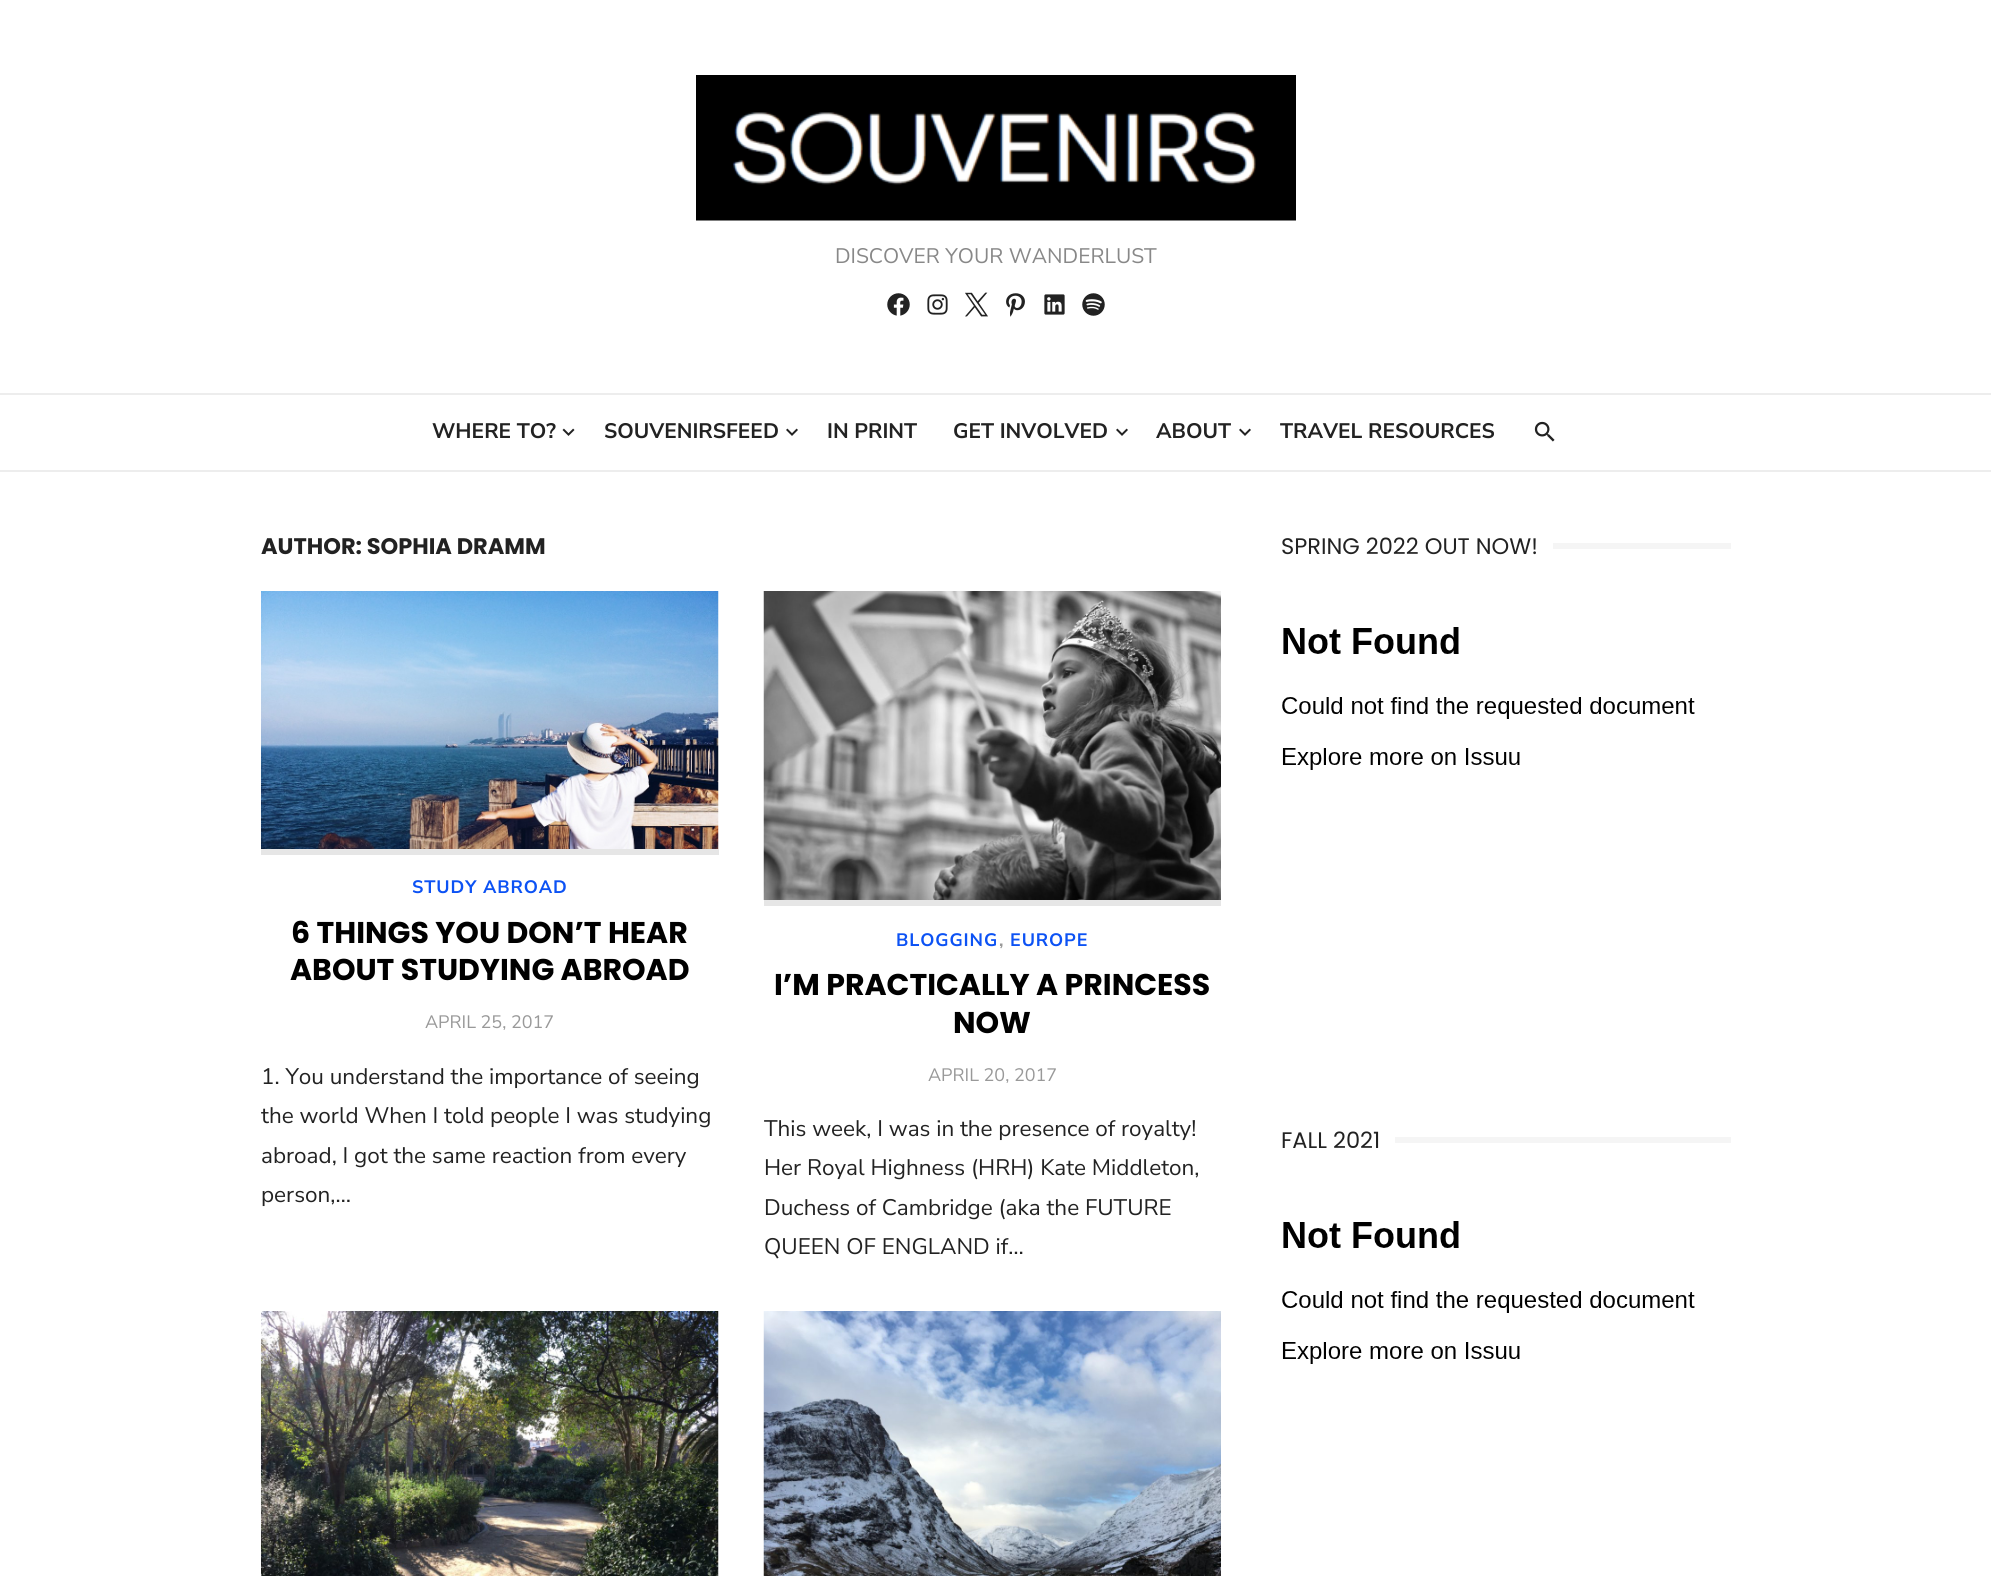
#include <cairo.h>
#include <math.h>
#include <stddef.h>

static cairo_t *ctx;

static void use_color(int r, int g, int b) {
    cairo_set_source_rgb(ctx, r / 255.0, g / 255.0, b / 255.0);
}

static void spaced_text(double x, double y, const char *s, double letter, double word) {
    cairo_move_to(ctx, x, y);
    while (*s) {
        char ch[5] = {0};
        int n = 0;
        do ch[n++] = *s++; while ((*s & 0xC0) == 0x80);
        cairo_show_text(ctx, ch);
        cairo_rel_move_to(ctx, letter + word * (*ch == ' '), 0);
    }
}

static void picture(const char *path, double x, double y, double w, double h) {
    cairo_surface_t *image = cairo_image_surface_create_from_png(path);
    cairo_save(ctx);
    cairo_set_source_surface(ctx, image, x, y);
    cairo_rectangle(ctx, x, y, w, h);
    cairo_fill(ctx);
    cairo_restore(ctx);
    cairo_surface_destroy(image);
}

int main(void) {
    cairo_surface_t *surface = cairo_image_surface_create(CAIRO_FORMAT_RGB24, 1991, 1576);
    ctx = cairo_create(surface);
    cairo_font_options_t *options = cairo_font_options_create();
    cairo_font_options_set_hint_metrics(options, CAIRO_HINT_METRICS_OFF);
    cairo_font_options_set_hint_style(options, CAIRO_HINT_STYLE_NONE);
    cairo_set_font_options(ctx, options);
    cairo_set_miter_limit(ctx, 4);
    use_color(255, 255, 255);
    cairo_paint(ctx);
    picture("img1.png", 696, 75, 600, 146);
    cairo_select_font_face(ctx, "Nunito Sans", CAIRO_FONT_SLANT_NORMAL, CAIRO_FONT_WEIGHT_NORMAL);
    cairo_set_font_size(ctx, 21);
    use_color(136, 136, 136);
    cairo_move_to(ctx, 835, 263);
    cairo_show_text(ctx, "DISCOVER YOUR WANDERLUST");
    picture("img2.png", 887, 293, 23, 23);
    picture("img3.png", 927, 294, 21, 21);
    picture("img4.png", 965, 292, 23, 25);
    picture("img5.png", 1006, 293, 19, 24);
    picture("img6.png", 1044, 294, 21, 21);
    picture("img7.png", 1082, 293, 23, 23);
    use_color(237, 237, 237);
    cairo_rectangle(ctx, 0, 393, 1991, 2);
    cairo_fill(ctx);
    cairo_rectangle(ctx, 0, 470, 1991, 2);
    cairo_fill(ctx);
    cairo_select_font_face(ctx, "Nunito Sans", CAIRO_FONT_SLANT_NORMAL, CAIRO_FONT_WEIGHT_BOLD);
    use_color(34, 34, 34);
    cairo_move_to(ctx, 432, 438);
    cairo_show_text(ctx, "WHERE TO?");
    picture("img8.png", 562, 428, 13, 8);
    cairo_move_to(ctx, 604, 438);
    cairo_show_text(ctx, "SOUVENIRSFEED");
    picture("img9.png", 786, 428, 12, 8);
    cairo_move_to(ctx, 827, 438);
    cairo_show_text(ctx, "IN PRINT");
    cairo_move_to(ctx, 953, 438);
    cairo_show_text(ctx, "GET INVOLVED");
    picture("img9.png", 1116, 428, 12, 8);
    cairo_move_to(ctx, 1156, 438);
    cairo_show_text(ctx, "ABOUT");
    picture("img9.png", 1239, 428, 12, 8);
    cairo_move_to(ctx, 1280, 438);
    cairo_show_text(ctx, "TRAVEL RESOURCES");
    picture("img10.png", 1534, 421, 21, 21);
    cairo_select_font_face(ctx, "Poppins", CAIRO_FONT_SLANT_NORMAL, CAIRO_FONT_WEIGHT_BOLD);
    cairo_set_font_size(ctx, 22.5);
    cairo_move_to(ctx, 261, 554);
    cairo_show_text(ctx, "AUTHOR: SOPHIA DRAMM");
    use_color(230, 230, 230);
    cairo_rectangle(ctx, 261, 849, 458, 6);
    cairo_fill(ctx);
    picture("img11.png", 261, 591, 458, 258);
    cairo_select_font_face(ctx, "Nunito Sans", CAIRO_FONT_SLANT_NORMAL, CAIRO_FONT_WEIGHT_BOLD);
    cairo_set_font_size(ctx, 18);
    use_color(12, 82, 244);
    spaced_text(412, 893, "STUDY ABROAD", 0.9, 0);
    cairo_select_font_face(ctx, "Poppins", CAIRO_FONT_SLANT_NORMAL, CAIRO_FONT_WEIGHT_BOLD);
    cairo_set_font_size(ctx, 30);
    use_color(0, 0, 0);
    cairo_move_to(ctx, 291, 943);
    cairo_show_text(ctx, "6 THINGS YOU DON’T HEAR");
    cairo_move_to(ctx, 290, 980);
    cairo_show_text(ctx, "ABOUT STUDYING ABROAD");
    cairo_select_font_face(ctx, "Nunito Sans", CAIRO_FONT_SLANT_NORMAL, CAIRO_FONT_WEIGHT_NORMAL);
    cairo_set_font_size(ctx, 18);
    use_color(153, 153, 153);
    cairo_move_to(ctx, 425, 1028);
    cairo_show_text(ctx, "APRIL 25, 2017");
    cairo_set_font_size(ctx, 22.5);
    use_color(34, 34, 34);
    cairo_move_to(ctx, 261, 1084);
    cairo_show_text(ctx, "1. You understand the importance of seeing");
    cairo_move_to(ctx, 261, 1123);
    cairo_show_text(ctx, "the world When I told people I was studying");
    cairo_move_to(ctx, 261, 1163);
    cairo_show_text(ctx, "abroad, I got the same reaction from every");
    cairo_move_to(ctx, 261, 1202);
    cairo_show_text(ctx, "person,…");
    use_color(230, 230, 230);
    cairo_rectangle(ctx, 764, 900, 457, 6);
    cairo_fill(ctx);
    picture("img12.png", 763, 591, 458, 309);
    cairo_select_font_face(ctx, "Nunito Sans", CAIRO_FONT_SLANT_NORMAL, CAIRO_FONT_WEIGHT_BOLD);
    cairo_set_font_size(ctx, 18);
    use_color(12, 82, 244);
    spaced_text(896, 946, "BLOGGING", 0.9, 0);
    use_color(153, 153, 153);
    spaced_text(999, 946, ",", 0.9, 0);
    use_color(12, 82, 244);
    spaced_text(1010, 946, "EUROPE", 0.9, 0);
    cairo_select_font_face(ctx, "Poppins", CAIRO_FONT_SLANT_NORMAL, CAIRO_FONT_WEIGHT_BOLD);
    cairo_set_font_size(ctx, 30);
    use_color(0, 0, 0);
    cairo_move_to(ctx, 774, 995);
    cairo_show_text(ctx, "I’M PRACTICALLY A PRINCESS");
    cairo_move_to(ctx, 953, 1033);
    cairo_show_text(ctx, "NOW");
    cairo_select_font_face(ctx, "Nunito Sans", CAIRO_FONT_SLANT_NORMAL, CAIRO_FONT_WEIGHT_NORMAL);
    cairo_set_font_size(ctx, 18);
    use_color(153, 153, 153);
    cairo_move_to(ctx, 928, 1081);
    cairo_show_text(ctx, "APRIL 20, 2017");
    cairo_set_font_size(ctx, 22.5);
    use_color(34, 34, 34);
    cairo_move_to(ctx, 764, 1136);
    cairo_show_text(ctx, "This week, I was in the presence of royalty!");
    cairo_move_to(ctx, 764, 1175);
    cairo_show_text(ctx, "Her Royal Highness (HRH) Kate Middleton,");
    cairo_move_to(ctx, 764, 1215);
    cairo_show_text(ctx, "Duchess of Cambridge (aka the FUTURE");
    cairo_move_to(ctx, 764, 1254);
    cairo_show_text(ctx, "QUEEN OF ENGLAND if…");
    picture("img13.png", 261, 1311, 458, 265);
    picture("img14.png", 763, 1311, 458, 265);
    cairo_select_font_face(ctx, "Poppins", CAIRO_FONT_SLANT_NORMAL, CAIRO_FONT_WEIGHT_NORMAL);
    cairo_move_to(ctx, 1281, 554);
    cairo_show_text(ctx, "SPRING 2022 OUT NOW!");
    use_color(245, 245, 245);
    cairo_rectangle(ctx, 1553, 543, 178, 6);
    cairo_fill(ctx);
    picture("img15.png", 1282, 627, 413, 143);
    use_color(34, 34, 34);
    cairo_move_to(ctx, 1281, 1148);
    cairo_show_text(ctx, "FALL 2021");
    use_color(245, 245, 245);
    cairo_rectangle(ctx, 1395, 1137, 336, 6);
    cairo_fill(ctx);
    picture("img15.png", 1282, 1221, 413, 143);
    cairo_surface_write_to_png(surface, "result.png");
    cairo_font_options_destroy(options);
    cairo_destroy(ctx);
    cairo_surface_destroy(surface);
    return 0;
}
